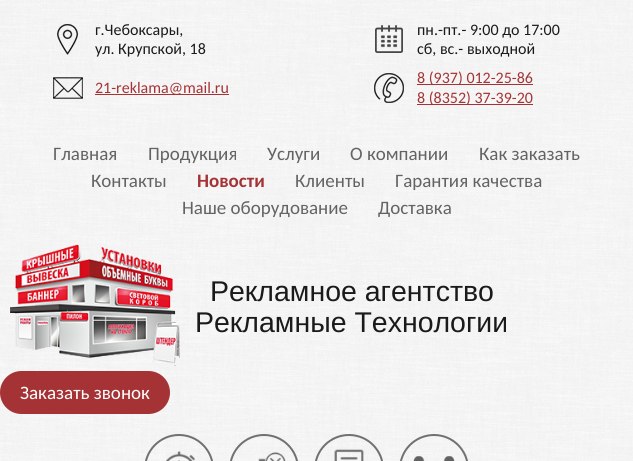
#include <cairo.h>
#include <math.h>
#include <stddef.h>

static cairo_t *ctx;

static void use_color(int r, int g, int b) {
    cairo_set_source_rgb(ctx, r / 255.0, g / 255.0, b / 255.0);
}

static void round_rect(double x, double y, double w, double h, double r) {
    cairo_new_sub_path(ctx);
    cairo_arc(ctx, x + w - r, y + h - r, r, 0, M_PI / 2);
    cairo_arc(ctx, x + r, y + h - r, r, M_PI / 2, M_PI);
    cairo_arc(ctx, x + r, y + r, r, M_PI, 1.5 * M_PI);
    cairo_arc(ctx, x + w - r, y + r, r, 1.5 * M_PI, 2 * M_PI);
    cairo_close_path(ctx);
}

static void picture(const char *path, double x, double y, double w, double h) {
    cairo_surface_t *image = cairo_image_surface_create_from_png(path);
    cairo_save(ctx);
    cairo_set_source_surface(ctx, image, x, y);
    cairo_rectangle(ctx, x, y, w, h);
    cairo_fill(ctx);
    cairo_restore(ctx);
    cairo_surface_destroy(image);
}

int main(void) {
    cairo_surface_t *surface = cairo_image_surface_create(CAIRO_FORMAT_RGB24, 633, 461);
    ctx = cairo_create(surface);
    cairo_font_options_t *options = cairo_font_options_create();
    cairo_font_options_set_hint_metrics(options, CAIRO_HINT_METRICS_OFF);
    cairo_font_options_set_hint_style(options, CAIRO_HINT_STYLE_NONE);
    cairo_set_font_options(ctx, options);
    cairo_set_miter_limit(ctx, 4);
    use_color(255, 255, 255);
    cairo_paint(ctx);
    picture("img1.png", 0, 0, 633, 461);
    picture("img2.png", 57, 24, 21, 31);
    cairo_select_font_face(ctx, "Carlito", CAIRO_FONT_SLANT_NORMAL, CAIRO_FONT_WEIGHT_NORMAL);
    cairo_set_font_size(ctx, 16);
    use_color(26, 26, 26);
    cairo_move_to(ctx, 95, 35);
    cairo_show_text(ctx, "г.Чебоксары,");
    cairo_move_to(ctx, 95, 54);
    cairo_show_text(ctx, "ул. Крупской, 18");
    picture("img3.png", 375, 25, 28, 28);
    cairo_move_to(ctx, 417, 35);
    cairo_show_text(ctx, "пн.-пт.- 9:00 до 17:00");
    cairo_move_to(ctx, 417, 54);
    cairo_show_text(ctx, "сб, вс.- выходной");
    picture("img4.png", 53, 77, 30, 22);
    use_color(165, 51, 53);
    cairo_rectangle(ctx, 95, 94, 134, 1);
    cairo_fill(ctx);
    cairo_move_to(ctx, 95, 93);
    cairo_show_text(ctx, "21-reklama@mail.ru");
    picture("img5.png", 374, 73, 30, 30);
    cairo_rectangle(ctx, 417, 84, 116, 1);
    cairo_fill(ctx);
    cairo_move_to(ctx, 417, 83);
    cairo_show_text(ctx, "8 (937) 012-25-86");
    cairo_rectangle(ctx, 417, 104, 116, 1);
    cairo_fill(ctx);
    cairo_move_to(ctx, 417, 103);
    cairo_show_text(ctx, "8 (8352) 37-39-20");
    cairo_set_font_size(ctx, 19);
    use_color(99, 99, 99);
    cairo_move_to(ctx, 53, 160);
    cairo_show_text(ctx, "Главная");
    cairo_move_to(ctx, 148, 160);
    cairo_show_text(ctx, "Продукция");
    cairo_move_to(ctx, 267, 160);
    cairo_show_text(ctx, "Услуги");
    cairo_move_to(ctx, 350, 160);
    cairo_show_text(ctx, "О компании");
    cairo_move_to(ctx, 479, 160);
    cairo_show_text(ctx, "Как заказать");
    cairo_move_to(ctx, 91, 187);
    cairo_show_text(ctx, "Контакты");
    cairo_select_font_face(ctx, "Carlito", CAIRO_FONT_SLANT_NORMAL, CAIRO_FONT_WEIGHT_BOLD);
    use_color(165, 51, 53);
    cairo_move_to(ctx, 197, 187);
    cairo_show_text(ctx, "Новости");
    cairo_select_font_face(ctx, "Carlito", CAIRO_FONT_SLANT_NORMAL, CAIRO_FONT_WEIGHT_NORMAL);
    use_color(99, 99, 99);
    cairo_move_to(ctx, 295, 187);
    cairo_show_text(ctx, "Клиенты");
    cairo_move_to(ctx, 395, 187);
    cairo_show_text(ctx, "Гарантия качества");
    cairo_move_to(ctx, 182, 214);
    cairo_show_text(ctx, "Наше оборудование");
    cairo_move_to(ctx, 378, 214);
    cairo_show_text(ctx, "Доставка");
    picture("img6.png", 10, 244, 170, 122);
    cairo_select_font_face(ctx, "Liberation Sans", CAIRO_FONT_SLANT_NORMAL, CAIRO_FONT_WEIGHT_NORMAL);
    cairo_set_font_size(ctx, 28.5);
    use_color(26, 26, 26);
    cairo_move_to(ctx, 210, 301);
    cairo_show_text(ctx, "Рекламное агентство");
    cairo_move_to(ctx, 195, 332);
    cairo_show_text(ctx, "Рекламные Технологии");
    use_color(165, 51, 53);
    round_rect(0, 371, 170, 43, 21.5);
    cairo_fill(ctx);
    cairo_select_font_face(ctx, "Carlito", CAIRO_FONT_SLANT_NORMAL, CAIRO_FONT_WEIGHT_NORMAL);
    cairo_set_font_size(ctx, 19);
    use_color(255, 255, 255);
    cairo_move_to(ctx, 20, 399);
    cairo_show_text(ctx, "Заказать звонок");
    round_rect(145, 435, 68, 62, 34);
    cairo_set_source_rgba(ctx, 0.102, 0.102, 0.102, 0.6);
    cairo_stroke(ctx);
    picture("img7.png", 166, 451, 29, 10);
    round_rect(230, 435, 68, 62, 34);
    cairo_stroke(ctx);
    picture("img8.png", 258, 452, 28, 9);
    round_rect(315, 435, 68, 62, 34);
    cairo_stroke(ctx);
    picture("img9.png", 334, 449, 30, 12);
    round_rect(400, 435, 68, 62, 34);
    cairo_stroke(ctx);
    picture("img10.png", 413, 456, 42, 5);
    cairo_surface_write_to_png(surface, "result.png");
    cairo_font_options_destroy(options);
    cairo_destroy(ctx);
    cairo_surface_destroy(surface);
    return 0;
}
